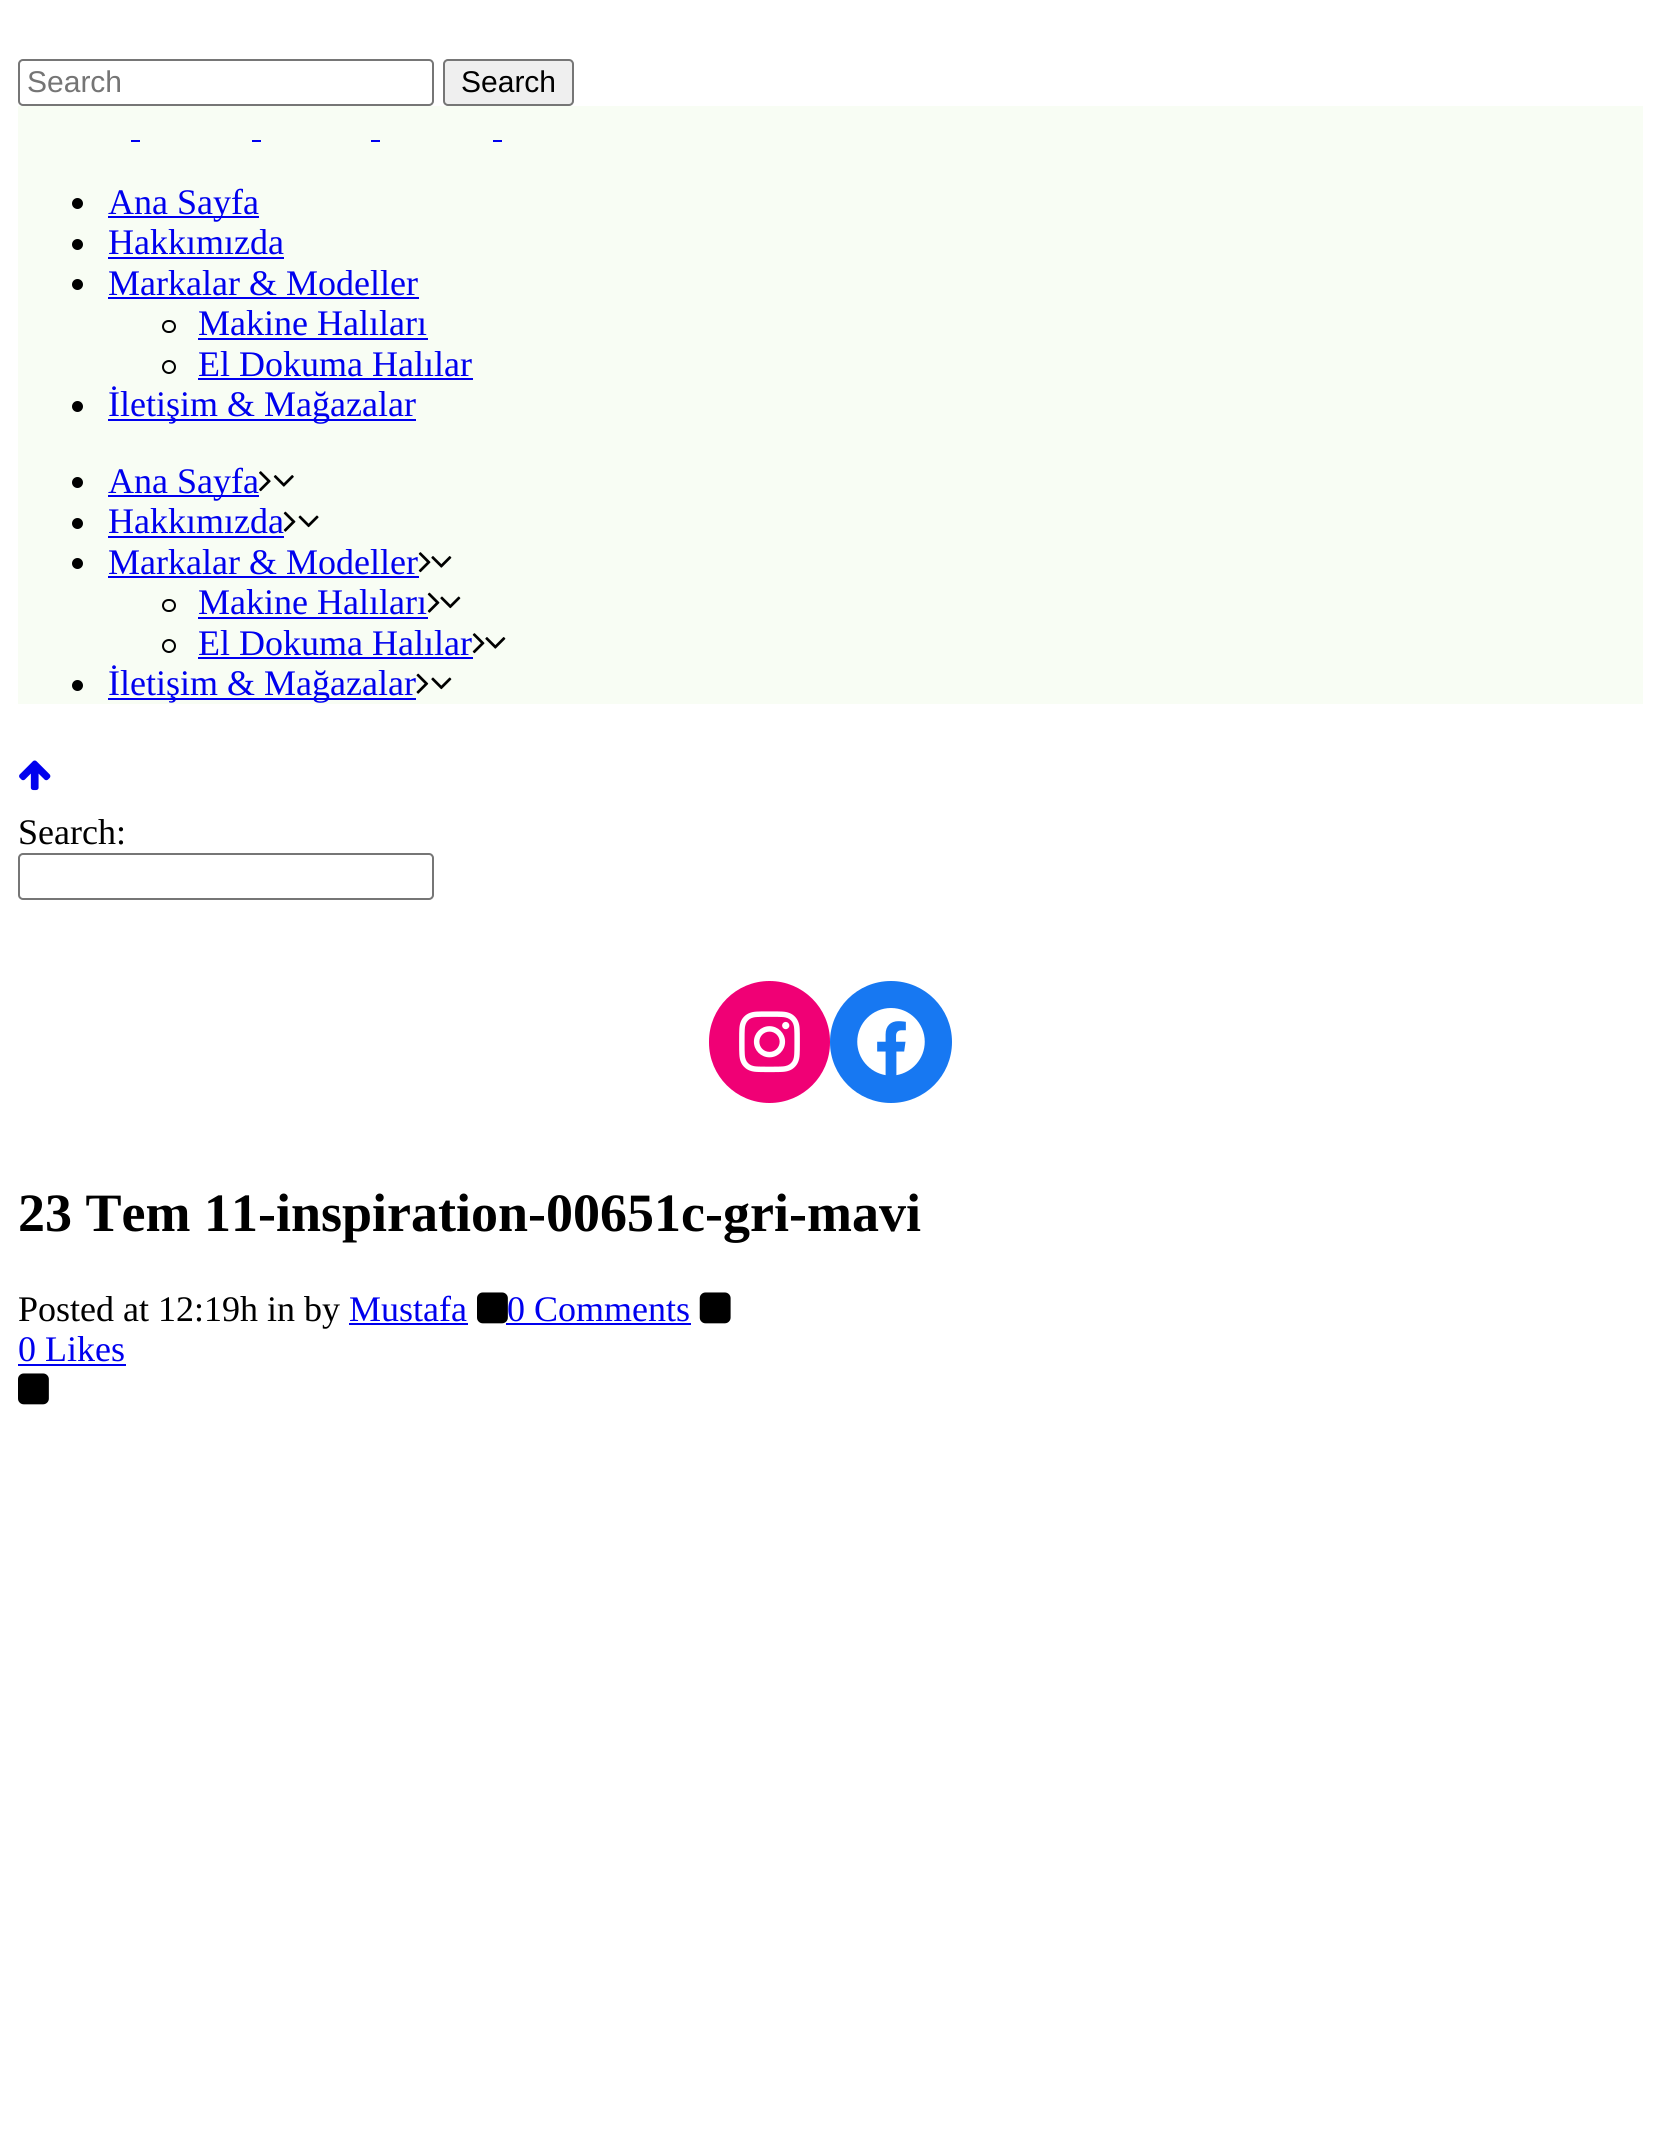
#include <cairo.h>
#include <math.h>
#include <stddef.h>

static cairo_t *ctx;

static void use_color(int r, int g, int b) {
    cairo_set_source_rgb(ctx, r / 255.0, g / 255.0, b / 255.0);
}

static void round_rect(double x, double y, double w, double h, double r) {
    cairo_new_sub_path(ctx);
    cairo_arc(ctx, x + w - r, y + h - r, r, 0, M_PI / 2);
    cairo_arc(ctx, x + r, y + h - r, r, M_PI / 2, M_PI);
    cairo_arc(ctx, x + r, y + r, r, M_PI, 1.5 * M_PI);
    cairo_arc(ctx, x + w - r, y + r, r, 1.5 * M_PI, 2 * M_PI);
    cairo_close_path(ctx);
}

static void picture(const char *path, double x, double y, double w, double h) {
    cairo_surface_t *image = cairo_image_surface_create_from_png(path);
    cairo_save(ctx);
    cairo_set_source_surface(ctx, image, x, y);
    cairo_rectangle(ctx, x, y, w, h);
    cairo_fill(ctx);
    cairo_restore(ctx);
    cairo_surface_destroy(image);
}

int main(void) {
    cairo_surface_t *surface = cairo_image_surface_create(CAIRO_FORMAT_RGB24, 1659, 2153);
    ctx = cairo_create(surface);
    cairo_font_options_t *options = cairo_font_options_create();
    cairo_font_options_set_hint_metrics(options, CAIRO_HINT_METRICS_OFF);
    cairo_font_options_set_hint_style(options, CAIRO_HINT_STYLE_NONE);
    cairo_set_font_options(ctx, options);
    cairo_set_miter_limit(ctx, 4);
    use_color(255, 255, 255);
    cairo_paint(ctx);
    round_rect(19, 60, 414, 45, 4);
    use_color(118, 118, 118);
    cairo_stroke(ctx);
    cairo_select_font_face(ctx, "Liberation Sans", CAIRO_FONT_SLANT_NORMAL, CAIRO_FONT_WEIGHT_NORMAL);
    cairo_set_font_size(ctx, 30);
    use_color(117, 117, 117);
    cairo_move_to(ctx, 27, 92);
    cairo_show_text(ctx, "Search");
    use_color(239, 239, 239);
    round_rect(444, 60, 129, 45, 4);
    cairo_fill_preserve(ctx);
    use_color(118, 118, 118);
    cairo_stroke(ctx);
    use_color(0, 0, 0);
    cairo_move_to(ctx, 461, 92);
    cairo_show_text(ctx, "Search");
    use_color(248, 253, 244);
    cairo_rectangle(ctx, 18, 106, 1625, 598);
    cairo_fill(ctx);
    use_color(0, 0, 238);
    cairo_rectangle(ctx, 131, 140, 9, 2);
    cairo_fill(ctx);
    cairo_rectangle(ctx, 252, 140, 9, 2);
    cairo_fill(ctx);
    cairo_rectangle(ctx, 371, 140, 9, 2);
    cairo_fill(ctx);
    cairo_rectangle(ctx, 493, 140, 9, 2);
    cairo_fill(ctx);
    use_color(0, 0, 0);
    cairo_arc(ctx, 77.5, 203.5, 5.5, 0, 2 * M_PI);
    cairo_fill(ctx);
    use_color(0, 0, 238);
    cairo_rectangle(ctx, 108, 216, 151, 2);
    cairo_fill(ctx);
    cairo_select_font_face(ctx, "Liberation Serif", CAIRO_FONT_SLANT_NORMAL, CAIRO_FONT_WEIGHT_NORMAL);
    cairo_set_font_size(ctx, 36);
    cairo_move_to(ctx, 108, 214);
    cairo_show_text(ctx, "Ana Sayfa");
    use_color(0, 0, 0);
    cairo_new_path(ctx);
    cairo_arc(ctx, 77.5, 244.5, 5.5, 0, 2 * M_PI);
    cairo_fill(ctx);
    use_color(0, 0, 238);
    cairo_move_to(ctx, 108, 254);
    cairo_show_text(ctx, "Hakkımızda");
    cairo_rectangle(ctx, 108, 257, 176, 2);
    cairo_fill(ctx);
    use_color(0, 0, 0);
    cairo_arc(ctx, 77.5, 284.5, 5.5, 0, 2 * M_PI);
    cairo_fill(ctx);
    use_color(0, 0, 238);
    cairo_move_to(ctx, 108, 295);
    cairo_show_text(ctx, "Markalar & Modeller");
    cairo_rectangle(ctx, 108, 297, 311, 2);
    cairo_fill(ctx);
    round_rect(163, 321, 12, 11, 5.5);
    use_color(0, 0, 0);
    cairo_stroke(ctx);
    use_color(0, 0, 238);
    cairo_move_to(ctx, 198, 335);
    cairo_show_text(ctx, "Makine Halıları");
    cairo_rectangle(ctx, 198, 338, 230, 2);
    cairo_fill(ctx);
    cairo_arc(ctx, 169, 367, 6, 0, 2 * M_PI);
    use_color(0, 0, 0);
    cairo_stroke(ctx);
    use_color(0, 0, 238);
    cairo_move_to(ctx, 198, 376);
    cairo_show_text(ctx, "El Dokuma Halılar");
    cairo_rectangle(ctx, 198, 378, 275, 2);
    cairo_fill(ctx);
    use_color(0, 0, 0);
    cairo_arc(ctx, 77.5, 406.5, 5.5, 0, 2 * M_PI);
    cairo_fill(ctx);
    use_color(0, 0, 238);
    cairo_rectangle(ctx, 108, 419, 308, 2);
    cairo_fill(ctx);
    cairo_move_to(ctx, 108, 416);
    cairo_show_text(ctx, "İletişim & Mağazalar");
    use_color(0, 0, 0);
    cairo_new_path(ctx);
    cairo_arc(ctx, 77.5, 482.5, 5.5, 0, 2 * M_PI);
    cairo_fill(ctx);
    use_color(0, 0, 238);
    cairo_rectangle(ctx, 108, 495, 151, 2);
    cairo_fill(ctx);
    cairo_move_to(ctx, 108, 493);
    cairo_show_text(ctx, "Ana Sayfa");
    picture("img1.png", 259, 471, 12, 21);
    picture("img2.png", 273, 475, 21, 12);
    use_color(0, 0, 0);
    cairo_arc(ctx, 77.5, 523.5, 5.5, 0, 2 * M_PI);
    cairo_fill(ctx);
    use_color(0, 0, 238);
    cairo_move_to(ctx, 108, 533);
    cairo_show_text(ctx, "Hakkımızda");
    cairo_rectangle(ctx, 108, 536, 176, 2);
    cairo_fill(ctx);
    picture("img3.png", 283, 511, 13, 21);
    picture("img4.png", 298, 515, 21, 13);
    use_color(0, 0, 0);
    cairo_arc(ctx, 77.5, 563.5, 5.5, 0, 2 * M_PI);
    cairo_fill(ctx);
    use_color(0, 0, 238);
    cairo_move_to(ctx, 108, 574);
    cairo_show_text(ctx, "Markalar & Modeller");
    cairo_rectangle(ctx, 108, 576, 311, 2);
    cairo_fill(ctx);
    picture("img5.png", 418, 552, 13, 21);
    picture("img6.png", 431, 556, 21, 12);
    round_rect(163, 600, 12, 11, 5.5);
    use_color(0, 0, 0);
    cairo_stroke(ctx);
    use_color(0, 0, 238);
    cairo_move_to(ctx, 198, 614);
    cairo_show_text(ctx, "Makine Halıları");
    cairo_rectangle(ctx, 198, 617, 230, 2);
    cairo_fill(ctx);
    picture("img3.png", 427, 592, 13, 21);
    picture("img7.png", 440, 596, 21, 13);
    cairo_arc(ctx, 169, 646, 6, 0, 2 * M_PI);
    use_color(0, 0, 0);
    cairo_stroke(ctx);
    use_color(0, 0, 238);
    cairo_move_to(ctx, 198, 655);
    cairo_show_text(ctx, "El Dokuma Halılar");
    cairo_rectangle(ctx, 198, 657, 275, 2);
    cairo_fill(ctx);
    picture("img5.png", 472, 633, 13, 21);
    picture("img6.png", 485, 637, 21, 12);
    use_color(0, 0, 0);
    cairo_arc(ctx, 77.5, 685.5, 5.5, 0, 2 * M_PI);
    cairo_fill(ctx);
    use_color(0, 0, 238);
    cairo_rectangle(ctx, 108, 698, 308, 2);
    cairo_fill(ctx);
    cairo_move_to(ctx, 108, 695);
    cairo_show_text(ctx, "İletişim & Mağazalar");
    picture("img8.png", 416, 673, 13, 21);
    picture("img7.png", 431, 677, 21, 13);
    picture("img9.png", 19, 760, 32, 31);
    use_color(0, 0, 0);
    cairo_move_to(ctx, 18, 844);
    cairo_show_text(ctx, "Search:");
    round_rect(19, 854, 414, 45, 4);
    use_color(118, 118, 118);
    cairo_stroke(ctx);
    use_color(240, 0, 117);
    round_rect(709, 981, 121, 122, 60.5);
    cairo_fill(ctx);
    picture("img10.png", 739, 1011, 61, 62);
    use_color(23, 120, 242);
    cairo_arc(ctx, 891, 1042, 61, 0, 2 * M_PI);
    cairo_fill(ctx);
    picture("img11.png", 857, 1008, 68, 68);
    cairo_select_font_face(ctx, "Liberation Serif", CAIRO_FONT_SLANT_NORMAL, CAIRO_FONT_WEIGHT_BOLD);
    cairo_set_font_size(ctx, 54);
    use_color(0, 0, 0);
    cairo_move_to(ctx, 18, 1231);
    cairo_show_text(ctx, "23 Tem 11-inspiration-00651c-gri-mavi");
    cairo_select_font_face(ctx, "Liberation Serif", CAIRO_FONT_SLANT_NORMAL, CAIRO_FONT_WEIGHT_NORMAL);
    cairo_set_font_size(ctx, 36);
    cairo_move_to(ctx, 18, 1321);
    cairo_show_text(ctx, "Posted at 12:19h in by");
    use_color(0, 0, 238);
    cairo_move_to(ctx, 349, 1321);
    cairo_show_text(ctx, "Mustafa");
    cairo_rectangle(ctx, 349, 1323, 119, 2);
    cairo_fill(ctx);
    picture("img12.png", 477, 1292, 31, 32);
    cairo_move_to(ctx, 507, 1321);
    cairo_show_text(ctx, "0 Comments");
    cairo_rectangle(ctx, 506, 1323, 185, 2);
    cairo_fill(ctx);
    picture("img13.png", 699, 1292, 32, 32);
    cairo_move_to(ctx, 18, 1361);
    cairo_show_text(ctx, "0 Likes");
    cairo_rectangle(ctx, 18, 1364, 108, 2);
    cairo_fill(ctx);
    picture("img12.png", 18, 1373, 31, 32);
    cairo_surface_write_to_png(surface, "result.png");
    cairo_font_options_destroy(options);
    cairo_destroy(ctx);
    cairo_surface_destroy(surface);
    return 0;
}
